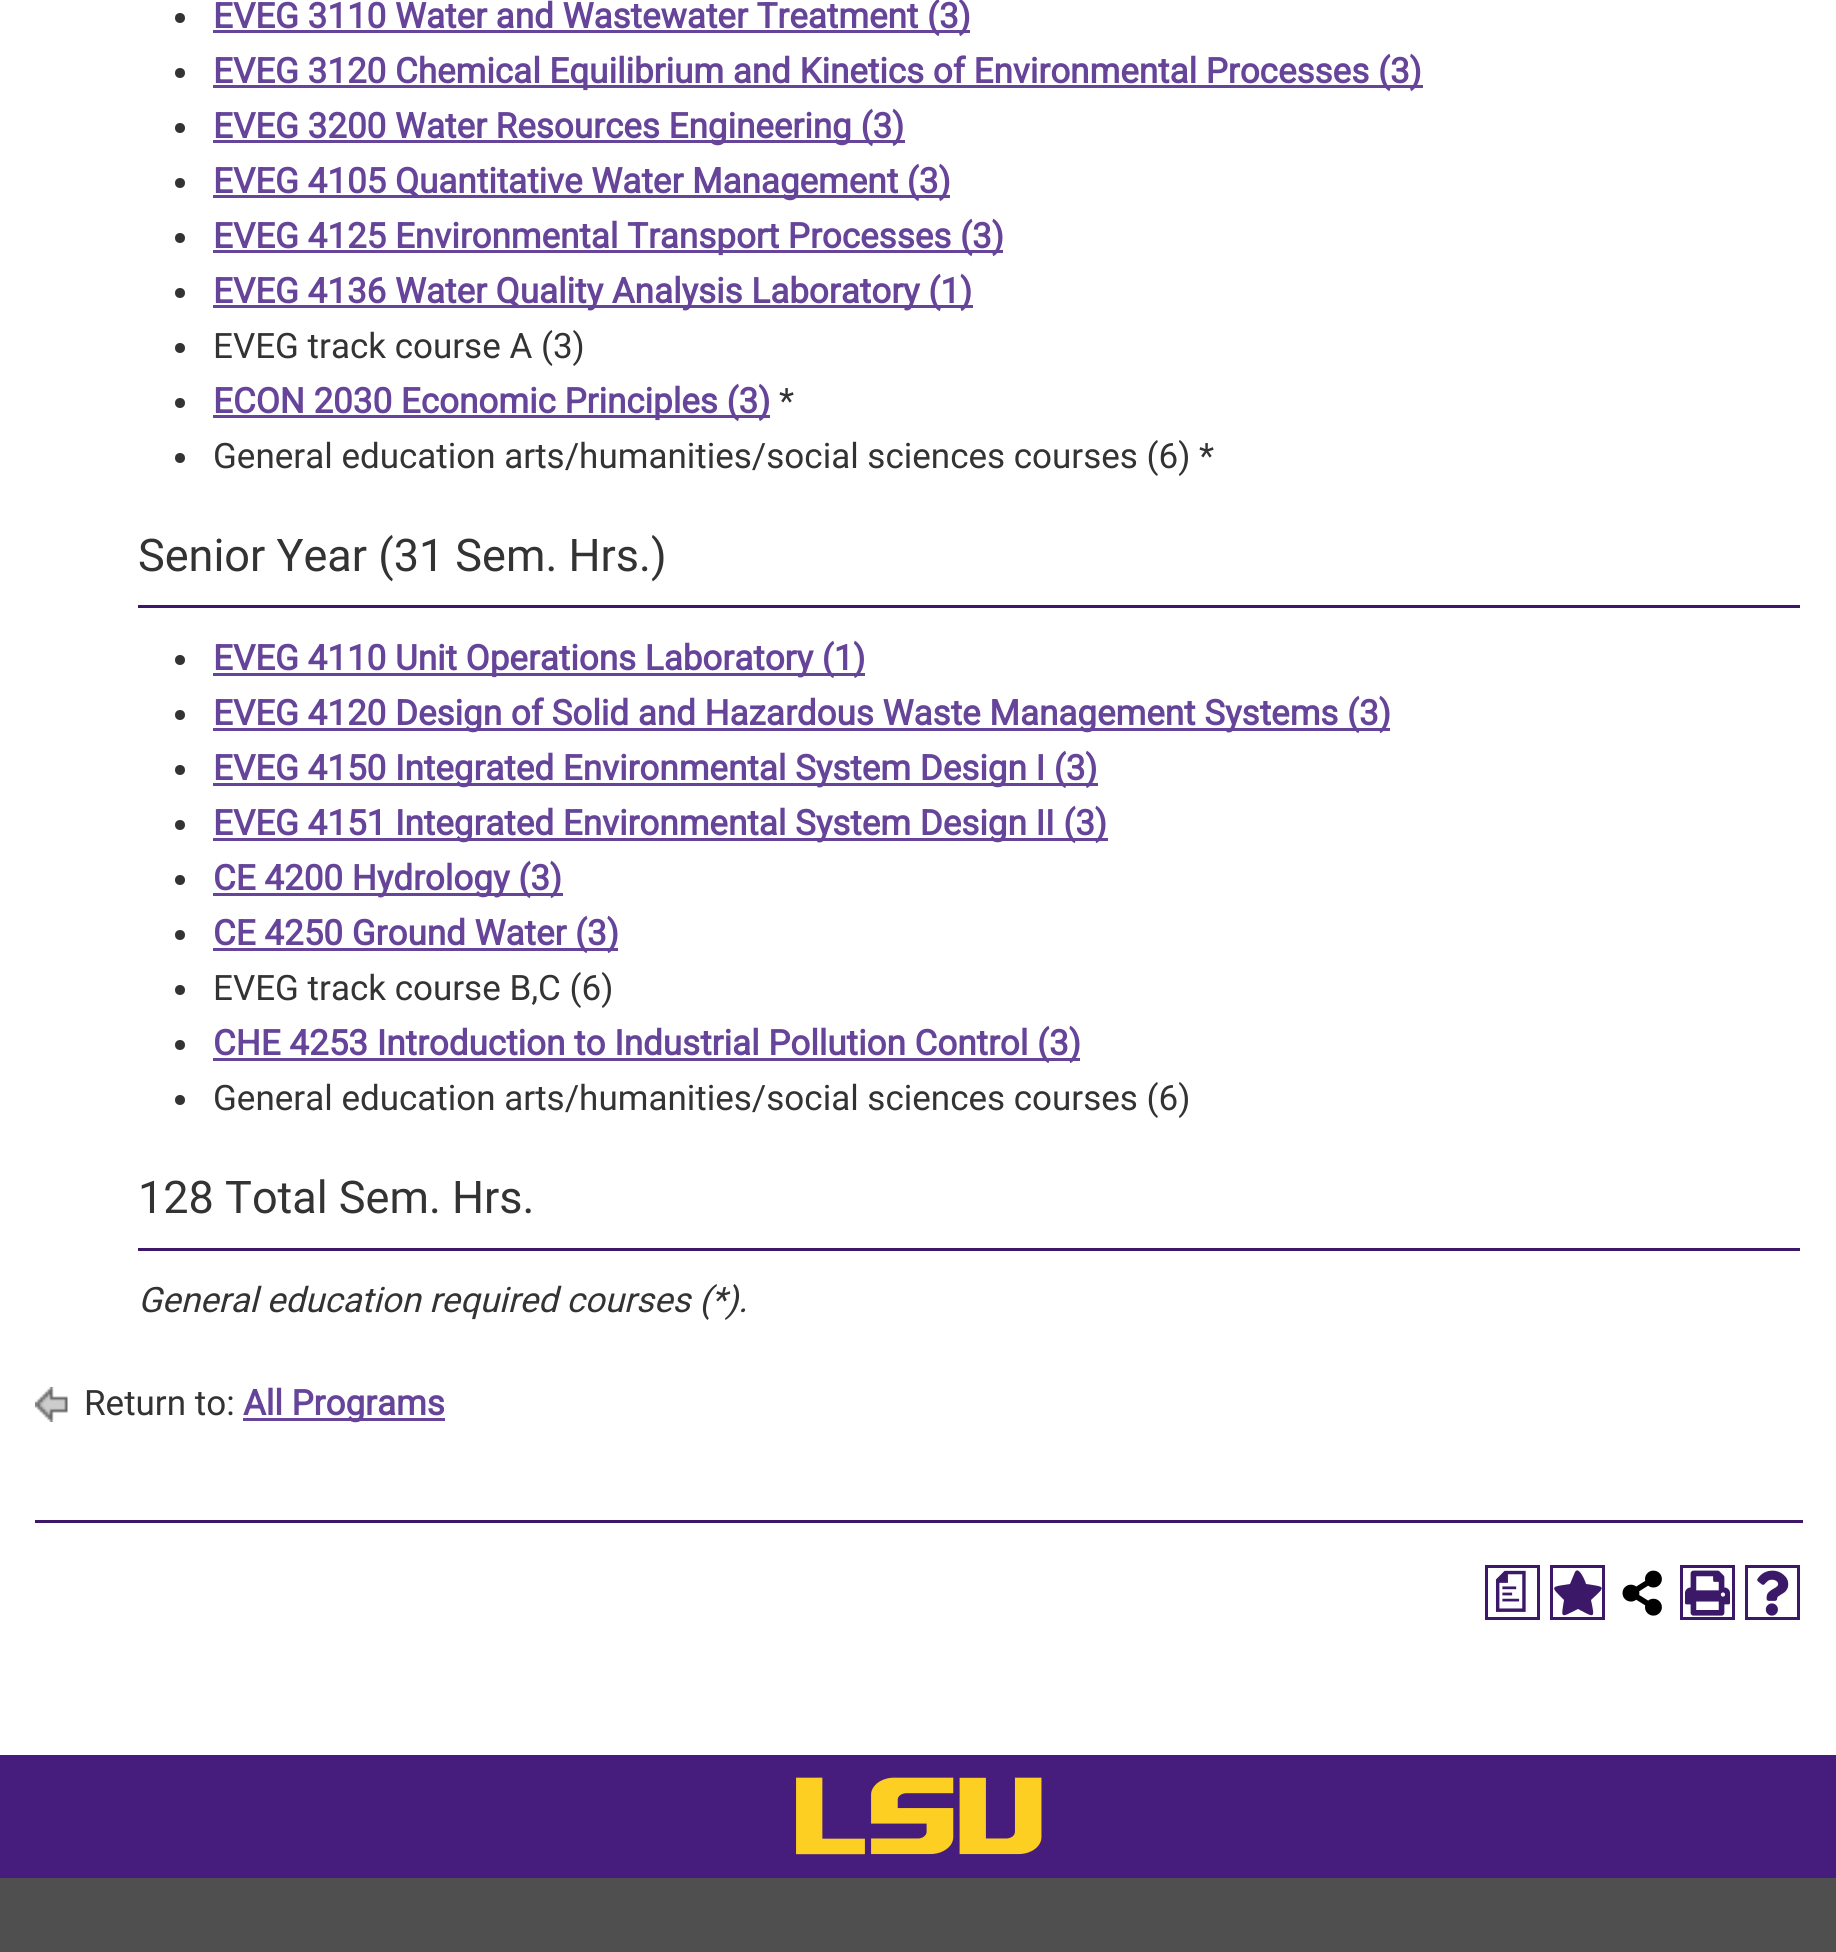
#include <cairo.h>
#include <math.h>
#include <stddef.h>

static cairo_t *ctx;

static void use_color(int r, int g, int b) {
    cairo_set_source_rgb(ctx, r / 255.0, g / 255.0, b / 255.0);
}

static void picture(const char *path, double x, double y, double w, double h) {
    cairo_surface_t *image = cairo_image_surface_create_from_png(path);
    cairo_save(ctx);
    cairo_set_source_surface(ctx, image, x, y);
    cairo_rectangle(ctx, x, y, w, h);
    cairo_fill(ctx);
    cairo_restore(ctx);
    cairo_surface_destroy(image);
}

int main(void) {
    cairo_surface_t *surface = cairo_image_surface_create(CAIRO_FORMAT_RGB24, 1836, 1952);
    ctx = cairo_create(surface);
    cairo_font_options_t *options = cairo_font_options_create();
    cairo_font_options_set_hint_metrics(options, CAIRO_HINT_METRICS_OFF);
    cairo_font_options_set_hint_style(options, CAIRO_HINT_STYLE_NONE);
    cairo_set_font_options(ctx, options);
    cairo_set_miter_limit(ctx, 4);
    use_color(255, 255, 255);
    cairo_paint(ctx);
    use_color(51, 51, 51);
    cairo_arc(ctx, 180, 18, 5, 0, 2 * M_PI);
    cairo_fill(ctx);
    use_color(102, 68, 153);
    cairo_rectangle(ctx, 213, 30, 757, 3);
    cairo_fill(ctx);
    cairo_select_font_face(ctx, "Roboto", CAIRO_FONT_SLANT_NORMAL, CAIRO_FONT_WEIGHT_BOLD);
    cairo_set_font_size(ctx, 35);
    cairo_move_to(ctx, 213, 28);
    cairo_show_text(ctx, "EVEG 3110 Water and Wastewater Treatment (3)");
    use_color(51, 51, 51);
    cairo_new_path(ctx);
    cairo_arc(ctx, 180, 73, 5, 0, 2 * M_PI);
    cairo_fill(ctx);
    use_color(102, 68, 153);
    cairo_rectangle(ctx, 213, 85, 1210, 3);
    cairo_fill(ctx);
    cairo_move_to(ctx, 213, 83);
    cairo_show_text(ctx, "EVEG 3120 Chemical Equilibrium and Kinetics of Environmental Processes (3)");
    use_color(51, 51, 51);
    cairo_new_path(ctx);
    cairo_arc(ctx, 180, 128, 5, 0, 2 * M_PI);
    cairo_fill(ctx);
    use_color(102, 68, 153);
    cairo_rectangle(ctx, 213, 140, 692, 3);
    cairo_fill(ctx);
    cairo_move_to(ctx, 213, 138);
    cairo_show_text(ctx, "EVEG 3200 Water Resources Engineering (3)");
    use_color(51, 51, 51);
    cairo_new_path(ctx);
    cairo_arc(ctx, 180, 183, 5, 0, 2 * M_PI);
    cairo_fill(ctx);
    use_color(102, 68, 153);
    cairo_rectangle(ctx, 213, 195, 737, 3);
    cairo_fill(ctx);
    cairo_move_to(ctx, 213, 193);
    cairo_show_text(ctx, "EVEG 4105 Quantitative Water Management (3)");
    use_color(51, 51, 51);
    cairo_new_path(ctx);
    cairo_arc(ctx, 180, 238, 5, 0, 2 * M_PI);
    cairo_fill(ctx);
    use_color(102, 68, 153);
    cairo_rectangle(ctx, 213, 250, 790, 3);
    cairo_fill(ctx);
    cairo_move_to(ctx, 213, 248);
    cairo_show_text(ctx, "EVEG 4125 Environmental Transport Processes (3)");
    use_color(51, 51, 51);
    cairo_new_path(ctx);
    cairo_arc(ctx, 180, 293, 5, 0, 2 * M_PI);
    cairo_fill(ctx);
    use_color(102, 68, 153);
    cairo_rectangle(ctx, 213, 305, 760, 3);
    cairo_fill(ctx);
    cairo_move_to(ctx, 213, 303);
    cairo_show_text(ctx, "EVEG 4136 Water Quality Analysis Laboratory (1)");
    use_color(51, 51, 51);
    cairo_new_path(ctx);
    cairo_arc(ctx, 180, 348, 5, 0, 2 * M_PI);
    cairo_fill(ctx);
    cairo_select_font_face(ctx, "Roboto", CAIRO_FONT_SLANT_NORMAL, CAIRO_FONT_WEIGHT_NORMAL);
    cairo_move_to(ctx, 213, 358);
    cairo_show_text(ctx, "EVEG track course A (3)");
    cairo_new_path(ctx);
    cairo_arc(ctx, 180, 403, 5, 0, 2 * M_PI);
    cairo_fill(ctx);
    use_color(102, 68, 153);
    cairo_rectangle(ctx, 213, 415, 557, 3);
    cairo_fill(ctx);
    cairo_select_font_face(ctx, "Roboto", CAIRO_FONT_SLANT_NORMAL, CAIRO_FONT_WEIGHT_BOLD);
    cairo_move_to(ctx, 213, 413);
    cairo_show_text(ctx, "ECON 2030 Economic Principles (3)");
    cairo_select_font_face(ctx, "Roboto", CAIRO_FONT_SLANT_NORMAL, CAIRO_FONT_WEIGHT_NORMAL);
    use_color(51, 51, 51);
    cairo_move_to(ctx, 779, 413);
    cairo_show_text(ctx, "*");
    cairo_new_path(ctx);
    cairo_arc(ctx, 180, 458, 5, 0, 2 * M_PI);
    cairo_fill(ctx);
    cairo_move_to(ctx, 213, 468);
    cairo_show_text(ctx, "General education arts/humanities/social sciences courses (6) *");
    cairo_set_font_size(ctx, 45);
    cairo_move_to(ctx, 138, 571);
    cairo_show_text(ctx, "Senior Year (31 Sem. Hrs.)");
    use_color(59, 24, 104);
    cairo_rectangle(ctx, 138, 605, 1662, 3);
    cairo_fill(ctx);
    use_color(51, 51, 51);
    cairo_arc(ctx, 180, 660, 5, 0, 2 * M_PI);
    cairo_fill(ctx);
    use_color(102, 68, 153);
    cairo_rectangle(ctx, 213, 673, 652, 3);
    cairo_fill(ctx);
    cairo_select_font_face(ctx, "Roboto", CAIRO_FONT_SLANT_NORMAL, CAIRO_FONT_WEIGHT_BOLD);
    cairo_set_font_size(ctx, 35);
    cairo_move_to(ctx, 213, 670);
    cairo_show_text(ctx, "EVEG 4110 Unit Operations Laboratory (1)");
    use_color(51, 51, 51);
    cairo_new_path(ctx);
    cairo_arc(ctx, 180, 715, 5, 0, 2 * M_PI);
    cairo_fill(ctx);
    use_color(102, 68, 153);
    cairo_rectangle(ctx, 213, 728, 1177, 3);
    cairo_fill(ctx);
    cairo_move_to(ctx, 213, 725);
    cairo_show_text(ctx, "EVEG 4120 Design of Solid and Hazardous Waste Management Systems (3)");
    use_color(51, 51, 51);
    cairo_new_path(ctx);
    cairo_arc(ctx, 180, 770, 5, 0, 2 * M_PI);
    cairo_fill(ctx);
    use_color(102, 68, 153);
    cairo_rectangle(ctx, 213, 783, 885, 3);
    cairo_fill(ctx);
    cairo_move_to(ctx, 213, 780);
    cairo_show_text(ctx, "EVEG 4150 Integrated Environmental System Design I (3)");
    use_color(51, 51, 51);
    cairo_new_path(ctx);
    cairo_arc(ctx, 180, 825, 5, 0, 2 * M_PI);
    cairo_fill(ctx);
    use_color(102, 68, 153);
    cairo_rectangle(ctx, 213, 838, 895, 3);
    cairo_fill(ctx);
    cairo_move_to(ctx, 213, 835);
    cairo_show_text(ctx, "EVEG 4151 Integrated Environmental System Design II (3)");
    use_color(51, 51, 51);
    cairo_new_path(ctx);
    cairo_arc(ctx, 180, 880, 5, 0, 2 * M_PI);
    cairo_fill(ctx);
    use_color(102, 68, 153);
    cairo_rectangle(ctx, 213, 893, 350, 3);
    cairo_fill(ctx);
    cairo_move_to(ctx, 213, 890);
    cairo_show_text(ctx, "CE 4200 Hydrology (3)");
    use_color(51, 51, 51);
    cairo_new_path(ctx);
    cairo_arc(ctx, 180, 935, 5, 0, 2 * M_PI);
    cairo_fill(ctx);
    use_color(102, 68, 153);
    cairo_rectangle(ctx, 213, 948, 405, 3);
    cairo_fill(ctx);
    cairo_move_to(ctx, 213, 945);
    cairo_show_text(ctx, "CE 4250 Ground Water (3)");
    use_color(51, 51, 51);
    cairo_new_path(ctx);
    cairo_arc(ctx, 180, 990, 5, 0, 2 * M_PI);
    cairo_fill(ctx);
    cairo_select_font_face(ctx, "Roboto", CAIRO_FONT_SLANT_NORMAL, CAIRO_FONT_WEIGHT_NORMAL);
    cairo_move_to(ctx, 213, 1000);
    cairo_show_text(ctx, "EVEG track course B,C (6)");
    cairo_new_path(ctx);
    cairo_arc(ctx, 180, 1045, 5, 0, 2 * M_PI);
    cairo_fill(ctx);
    use_color(102, 68, 153);
    cairo_rectangle(ctx, 213, 1058, 867, 3);
    cairo_fill(ctx);
    cairo_select_font_face(ctx, "Roboto", CAIRO_FONT_SLANT_NORMAL, CAIRO_FONT_WEIGHT_BOLD);
    cairo_move_to(ctx, 213, 1055);
    cairo_show_text(ctx, "CHE 4253 Introduction to Industrial Pollution Control (3)");
    use_color(51, 51, 51);
    cairo_new_path(ctx);
    cairo_arc(ctx, 180, 1100, 5, 0, 2 * M_PI);
    cairo_fill(ctx);
    cairo_select_font_face(ctx, "Roboto", CAIRO_FONT_SLANT_NORMAL, CAIRO_FONT_WEIGHT_NORMAL);
    cairo_move_to(ctx, 213, 1110);
    cairo_show_text(ctx, "General education arts/humanities/social sciences courses (6)");
    cairo_set_font_size(ctx, 45);
    cairo_move_to(ctx, 138, 1213);
    cairo_show_text(ctx, "128 Total Sem. Hrs.");
    use_color(59, 24, 104);
    cairo_rectangle(ctx, 138, 1248, 1662, 3);
    cairo_fill(ctx);
    cairo_select_font_face(ctx, "Roboto", CAIRO_FONT_SLANT_ITALIC, CAIRO_FONT_WEIGHT_NORMAL);
    cairo_set_font_size(ctx, 35);
    use_color(51, 51, 51);
    cairo_move_to(ctx, 138, 1312);
    cairo_show_text(ctx, "General education required courses (*).");
    picture("img1.png", 35, 1387, 33, 35);
    cairo_select_font_face(ctx, "Roboto", CAIRO_FONT_SLANT_NORMAL, CAIRO_FONT_WEIGHT_NORMAL);
    cairo_move_to(ctx, 84, 1415);
    cairo_show_text(ctx, "Return to:");
    use_color(102, 68, 153);
    cairo_rectangle(ctx, 243, 1418, 202, 3);
    cairo_fill(ctx);
    cairo_select_font_face(ctx, "Roboto", CAIRO_FONT_SLANT_NORMAL, CAIRO_FONT_WEIGHT_BOLD);
    cairo_move_to(ctx, 243, 1415);
    cairo_show_text(ctx, "All Programs");
    use_color(59, 24, 104);
    cairo_rectangle(ctx, 35, 1520, 1768, 3);
    cairo_fill(ctx);
    cairo_rectangle(ctx, 1486.5, 1566.5, 52, 52);
    cairo_set_line_width(ctx, 3);
    cairo_stroke(ctx);
    cairo_select_font_face(ctx, "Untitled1 Medium", CAIRO_FONT_SLANT_NORMAL, CAIRO_FONT_WEIGHT_NORMAL);
    cairo_set_font_size(ctx, 45);
    cairo_move_to(ctx, 1488, 1605);
    cairo_show_text(ctx, "a");
    cairo_rectangle(ctx, 1551.5, 1566.5, 52, 52);
    cairo_stroke(ctx);
    cairo_new_path(ctx);
    cairo_move_to(ctx, 1575, 1572);
    cairo_curve_to(ctx, 1579, 1565, 1586, 1583, 1586, 1584);
    cairo_curve_to(ctx, 1606, 1587, 1606, 1586, 1591, 1600);
    cairo_curve_to(ctx, 1595, 1619, 1595, 1618, 1578, 1609);
    cairo_curve_to(ctx, 1560, 1618, 1561, 1619, 1564, 1600);
    cairo_curve_to(ctx, 1550, 1586, 1550, 1587, 1570, 1584);
    cairo_close_path(ctx);
    cairo_fill(ctx);
    picture("img2.png", 1622, 1570, 40, 46);
    cairo_rectangle(ctx, 1681.5, 1566.5, 52, 52);
    cairo_stroke(ctx);
    picture("img3.png", 1685, 1570, 45, 46);
    cairo_rectangle(ctx, 1746.5, 1566.5, 52, 52);
    cairo_stroke(ctx);
    picture("img4.png", 1757, 1570, 32, 46);
    use_color(70, 29, 124);
    cairo_rectangle(ctx, 0, 1755, 1836, 123);
    cairo_fill(ctx);
    picture("img5.png", 796, 1777, 246, 78);
    use_color(79, 79, 79);
    cairo_rectangle(ctx, 0, 1878, 1836, 74);
    cairo_fill(ctx);
    cairo_surface_write_to_png(surface, "result.png");
    cairo_font_options_destroy(options);
    cairo_destroy(ctx);
    cairo_surface_destroy(surface);
    return 0;
}
